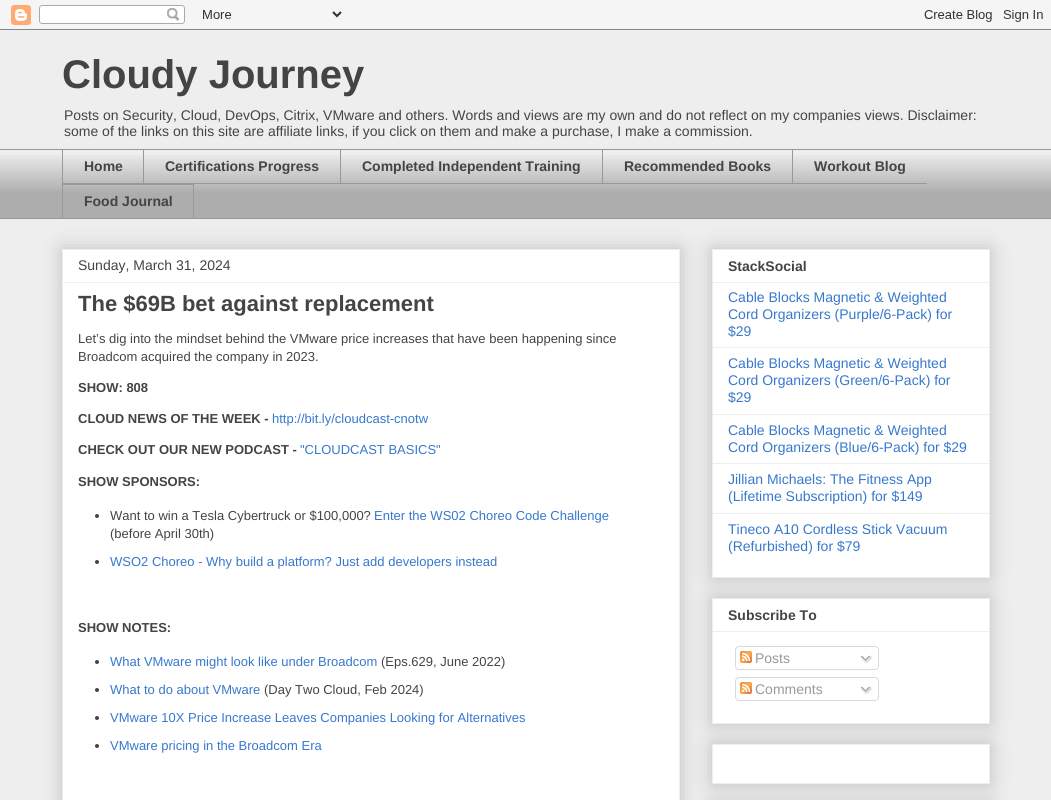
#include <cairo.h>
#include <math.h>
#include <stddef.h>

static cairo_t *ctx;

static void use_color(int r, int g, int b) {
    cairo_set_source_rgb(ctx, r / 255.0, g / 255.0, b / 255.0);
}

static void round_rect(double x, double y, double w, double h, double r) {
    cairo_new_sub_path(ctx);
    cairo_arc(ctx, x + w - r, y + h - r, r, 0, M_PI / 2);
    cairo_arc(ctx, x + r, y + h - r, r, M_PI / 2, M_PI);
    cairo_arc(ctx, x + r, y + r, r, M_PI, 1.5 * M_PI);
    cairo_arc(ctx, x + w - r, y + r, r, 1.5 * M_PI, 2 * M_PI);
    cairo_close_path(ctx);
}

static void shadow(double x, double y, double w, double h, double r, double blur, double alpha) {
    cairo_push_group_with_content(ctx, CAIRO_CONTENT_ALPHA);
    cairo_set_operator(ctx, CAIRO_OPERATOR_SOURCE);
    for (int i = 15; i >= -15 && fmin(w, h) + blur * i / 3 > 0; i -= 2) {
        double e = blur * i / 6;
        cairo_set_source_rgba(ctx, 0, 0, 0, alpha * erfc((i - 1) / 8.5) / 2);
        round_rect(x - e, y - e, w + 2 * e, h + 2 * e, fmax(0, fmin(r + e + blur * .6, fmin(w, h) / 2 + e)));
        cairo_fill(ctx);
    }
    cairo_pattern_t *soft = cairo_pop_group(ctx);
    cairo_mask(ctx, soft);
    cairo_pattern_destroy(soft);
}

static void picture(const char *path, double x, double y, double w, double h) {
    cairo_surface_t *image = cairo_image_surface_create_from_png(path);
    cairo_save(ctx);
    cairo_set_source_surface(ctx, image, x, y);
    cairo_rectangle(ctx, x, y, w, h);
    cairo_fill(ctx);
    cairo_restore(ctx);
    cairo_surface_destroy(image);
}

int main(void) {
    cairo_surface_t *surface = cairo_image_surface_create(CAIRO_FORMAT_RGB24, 1051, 800);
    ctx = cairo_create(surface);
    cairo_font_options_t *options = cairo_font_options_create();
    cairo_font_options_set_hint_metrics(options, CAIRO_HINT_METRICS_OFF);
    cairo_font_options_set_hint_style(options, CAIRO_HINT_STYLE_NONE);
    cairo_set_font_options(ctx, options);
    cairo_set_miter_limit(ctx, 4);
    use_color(238, 238, 238);
    cairo_paint(ctx);
    picture("img1.png", 0, 0, 1051, 30);
    cairo_select_font_face(ctx, "Liberation Sans", CAIRO_FONT_SLANT_NORMAL, CAIRO_FONT_WEIGHT_BOLD);
    cairo_set_font_size(ctx, 40);
    use_color(68, 68, 68);
    cairo_move_to(ctx, 62, 88);
    cairo_show_text(ctx, "Cloudy Journey");
    cairo_select_font_face(ctx, "Liberation Sans", CAIRO_FONT_SLANT_NORMAL, CAIRO_FONT_WEIGHT_NORMAL);
    cairo_set_font_size(ctx, 14);
    cairo_move_to(ctx, 64, 120);
    cairo_show_text(ctx, "Posts on Security, Cloud, DevOps, Citrix, VMware and others. Words and views are my own and do not reflect on my companies views. Disclaimer:");
    cairo_move_to(ctx, 64, 136);
    cairo_show_text(ctx, "some of the links on this site are affiliate links, if you click on them and make a purchase, I make a commission.");
    picture("img2.png", 0, 155, 1051, 63);
    use_color(153, 153, 153);
    cairo_rectangle(ctx, 0, 149, 1051, 1);
    cairo_fill(ctx);
    cairo_rectangle(ctx, 62, 183, 865, 1);
    cairo_fill(ctx);
    cairo_rectangle(ctx, 62, 149, 1, 35);
    cairo_fill(ctx);
    cairo_select_font_face(ctx, "Liberation Sans", CAIRO_FONT_SLANT_NORMAL, CAIRO_FONT_WEIGHT_BOLD);
    use_color(68, 68, 68);
    cairo_move_to(ctx, 84, 171);
    cairo_show_text(ctx, "Home");
    use_color(153, 153, 153);
    cairo_rectangle(ctx, 143, 149, 1, 35);
    cairo_fill(ctx);
    use_color(68, 68, 68);
    cairo_move_to(ctx, 165, 171);
    cairo_show_text(ctx, "Certifications Progress");
    use_color(153, 153, 153);
    cairo_rectangle(ctx, 340, 149, 1, 35);
    cairo_fill(ctx);
    use_color(68, 68, 68);
    cairo_move_to(ctx, 362, 171);
    cairo_show_text(ctx, "Completed Independent Training");
    use_color(153, 153, 153);
    cairo_rectangle(ctx, 602, 149, 1, 35);
    cairo_fill(ctx);
    use_color(68, 68, 68);
    cairo_move_to(ctx, 624, 171);
    cairo_show_text(ctx, "Recommended Books");
    use_color(153, 153, 153);
    cairo_rectangle(ctx, 792, 149, 1, 35);
    cairo_fill(ctx);
    use_color(68, 68, 68);
    cairo_move_to(ctx, 814, 171);
    cairo_show_text(ctx, "Workout Blog");
    cairo_rectangle(ctx, 62.5, 184.5, 131, 34);
    use_color(153, 153, 153);
    cairo_set_line_width(ctx, 1);
    cairo_stroke(ctx);
    use_color(68, 68, 68);
    cairo_move_to(ctx, 84, 206);
    cairo_show_text(ctx, "Food Journal");
    use_color(153, 153, 153);
    cairo_rectangle(ctx, 0, 218, 1051, 1);
    cairo_fill(ctx);
    use_color(0, 0, 0);
    shadow(62, 249, 618, 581, 0, 10, 0.2);
    use_color(255, 255, 255);
    cairo_rectangle(ctx, 62.5, 249.5, 617, 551);
    cairo_fill_preserve(ctx);
    use_color(238, 238, 238);
    cairo_stroke(ctx);
    cairo_select_font_face(ctx, "Liberation Sans", CAIRO_FONT_SLANT_NORMAL, CAIRO_FONT_WEIGHT_NORMAL);
    use_color(68, 68, 68);
    cairo_move_to(ctx, 78, 270);
    cairo_show_text(ctx, "Sunday, March 31, 2024");
    use_color(238, 238, 238);
    cairo_rectangle(ctx, 63, 282, 616, 1);
    cairo_fill(ctx);
    cairo_select_font_face(ctx, "Liberation Sans", CAIRO_FONT_SLANT_NORMAL, CAIRO_FONT_WEIGHT_BOLD);
    cairo_set_font_size(ctx, 22);
    use_color(68, 68, 68);
    cairo_move_to(ctx, 78, 311);
    cairo_show_text(ctx, "The $69B bet against replacement");
    cairo_select_font_face(ctx, "Liberation Sans", CAIRO_FONT_SLANT_NORMAL, CAIRO_FONT_WEIGHT_NORMAL);
    cairo_set_font_size(ctx, 13);
    cairo_move_to(ctx, 78, 343);
    cairo_show_text(ctx, "Let’s dig into the mindset behind the VMware price increases that have been happening since");
    cairo_move_to(ctx, 78, 361);
    cairo_show_text(ctx, "Broadcom acquired the company in 2023.");
    cairo_select_font_face(ctx, "Liberation Sans", CAIRO_FONT_SLANT_NORMAL, CAIRO_FONT_WEIGHT_BOLD);
    cairo_move_to(ctx, 78, 392);
    cairo_show_text(ctx, "SHOW: 808");
    cairo_move_to(ctx, 78, 423);
    cairo_show_text(ctx, "CLOUD NEWS OF THE WEEK -");
    cairo_select_font_face(ctx, "Liberation Sans", CAIRO_FONT_SLANT_NORMAL, CAIRO_FONT_WEIGHT_NORMAL);
    use_color(55, 120, 205);
    cairo_move_to(ctx, 272, 423);
    cairo_show_text(ctx, "http://bit.ly/cloudcast-cnotw");
    cairo_select_font_face(ctx, "Liberation Sans", CAIRO_FONT_SLANT_NORMAL, CAIRO_FONT_WEIGHT_BOLD);
    use_color(68, 68, 68);
    cairo_move_to(ctx, 78, 454);
    cairo_show_text(ctx, "CHECK OUT OUR NEW PODCAST -");
    cairo_select_font_face(ctx, "Liberation Sans", CAIRO_FONT_SLANT_NORMAL, CAIRO_FONT_WEIGHT_NORMAL);
    use_color(55, 120, 205);
    cairo_move_to(ctx, 300, 454);
    cairo_show_text(ctx, "\"CLOUDCAST BASICS\"");
    cairo_select_font_face(ctx, "Liberation Sans", CAIRO_FONT_SLANT_NORMAL, CAIRO_FONT_WEIGHT_BOLD);
    use_color(68, 68, 68);
    cairo_move_to(ctx, 78, 486);
    cairo_show_text(ctx, "SHOW SPONSORS:");
    cairo_new_path(ctx);
    cairo_arc(ctx, 97, 516, 2, 0, 2 * M_PI);
    cairo_fill(ctx);
    cairo_select_font_face(ctx, "Liberation Sans", CAIRO_FONT_SLANT_NORMAL, CAIRO_FONT_WEIGHT_NORMAL);
    cairo_move_to(ctx, 110, 520);
    cairo_show_text(ctx, "Want to win a Tesla Cybertruck or $100,000?");
    use_color(55, 120, 205);
    cairo_move_to(ctx, 374, 520);
    cairo_show_text(ctx, "Enter the WS02 Choreo Code Challenge");
    use_color(68, 68, 68);
    cairo_move_to(ctx, 110, 538);
    cairo_show_text(ctx, "(before April 30th)");
    cairo_new_path(ctx);
    cairo_arc(ctx, 97, 562, 2, 0, 2 * M_PI);
    cairo_fill(ctx);
    use_color(55, 120, 205);
    cairo_move_to(ctx, 110, 566);
    cairo_show_text(ctx, "WSO2 Choreo - Why build a platform? Just add developers instead");
    cairo_select_font_face(ctx, "Liberation Sans", CAIRO_FONT_SLANT_NORMAL, CAIRO_FONT_WEIGHT_BOLD);
    use_color(68, 68, 68);
    cairo_move_to(ctx, 78, 632);
    cairo_show_text(ctx, "SHOW NOTES:");
    cairo_new_path(ctx);
    cairo_arc(ctx, 97, 662, 2, 0, 2 * M_PI);
    cairo_fill(ctx);
    cairo_select_font_face(ctx, "Liberation Sans", CAIRO_FONT_SLANT_NORMAL, CAIRO_FONT_WEIGHT_NORMAL);
    use_color(55, 120, 205);
    cairo_move_to(ctx, 110, 666);
    cairo_show_text(ctx, "What VMware might look like under Broadcom");
    use_color(68, 68, 68);
    cairo_move_to(ctx, 381, 666);
    cairo_show_text(ctx, "(Eps.629, June 2022)");
    cairo_new_path(ctx);
    cairo_arc(ctx, 97, 690, 2, 0, 2 * M_PI);
    cairo_fill(ctx);
    use_color(55, 120, 205);
    cairo_move_to(ctx, 110, 694);
    cairo_show_text(ctx, "What to do about VMware");
    use_color(68, 68, 68);
    cairo_move_to(ctx, 264, 694);
    cairo_show_text(ctx, "(Day Two Cloud, Feb 2024)");
    cairo_new_path(ctx);
    cairo_arc(ctx, 97, 718, 2, 0, 2 * M_PI);
    cairo_fill(ctx);
    use_color(55, 120, 205);
    cairo_move_to(ctx, 110, 722);
    cairo_show_text(ctx, "VMware 10X Price Increase Leaves Companies Looking for Alternatives");
    use_color(68, 68, 68);
    cairo_new_path(ctx);
    cairo_arc(ctx, 97, 746, 2, 0, 2 * M_PI);
    cairo_fill(ctx);
    use_color(55, 120, 205);
    cairo_move_to(ctx, 110, 750);
    cairo_show_text(ctx, "VMware pricing in the Broadcom Era");
    use_color(0, 0, 0);
    shadow(712, 598, 278, 126, 0, 10, 0.2);
    use_color(255, 255, 255);
    cairo_rectangle(ctx, 712.5, 598.5, 277, 125);
    cairo_fill_preserve(ctx);
    use_color(238, 238, 238);
    cairo_stroke(ctx);
    use_color(0, 0, 0);
    shadow(712, 249, 278, 329, 0, 10, 0.2);
    use_color(255, 255, 255);
    cairo_rectangle(ctx, 712.5, 249.5, 277, 328);
    cairo_fill_preserve(ctx);
    use_color(238, 238, 238);
    cairo_stroke(ctx);
    cairo_select_font_face(ctx, "Liberation Sans", CAIRO_FONT_SLANT_NORMAL, CAIRO_FONT_WEIGHT_BOLD);
    cairo_set_font_size(ctx, 14);
    use_color(68, 68, 68);
    cairo_move_to(ctx, 728, 271);
    cairo_show_text(ctx, "StackSocial");
    use_color(238, 238, 238);
    cairo_rectangle(ctx, 713, 282, 276, 1);
    cairo_fill(ctx);
    cairo_select_font_face(ctx, "Liberation Sans", CAIRO_FONT_SLANT_NORMAL, CAIRO_FONT_WEIGHT_NORMAL);
    use_color(55, 120, 205);
    cairo_move_to(ctx, 728, 302);
    cairo_show_text(ctx, "Cable Blocks Magnetic & Weighted");
    cairo_move_to(ctx, 728, 319);
    cairo_show_text(ctx, "Cord Organizers (Purple/6-Pack) for");
    cairo_move_to(ctx, 728, 336);
    cairo_show_text(ctx, "$29");
    use_color(238, 238, 238);
    cairo_rectangle(ctx, 713, 347, 276, 1);
    cairo_fill(ctx);
    use_color(55, 120, 205);
    cairo_move_to(ctx, 728, 368);
    cairo_show_text(ctx, "Cable Blocks Magnetic & Weighted");
    cairo_move_to(ctx, 728, 385);
    cairo_show_text(ctx, "Cord Organizers (Green/6-Pack) for");
    cairo_move_to(ctx, 728, 402);
    cairo_show_text(ctx, "$29");
    use_color(238, 238, 238);
    cairo_rectangle(ctx, 713, 414, 276, 1);
    cairo_fill(ctx);
    use_color(55, 120, 205);
    cairo_move_to(ctx, 728, 435);
    cairo_show_text(ctx, "Cable Blocks Magnetic & Weighted");
    cairo_move_to(ctx, 728, 452);
    cairo_show_text(ctx, "Cord Organizers (Blue/6-Pack) for $29");
    use_color(238, 238, 238);
    cairo_rectangle(ctx, 713, 463, 276, 1);
    cairo_fill(ctx);
    use_color(55, 120, 205);
    cairo_move_to(ctx, 728, 484);
    cairo_show_text(ctx, "Jillian Michaels: The Fitness App");
    cairo_move_to(ctx, 728, 501);
    cairo_show_text(ctx, "(Lifetime Subscription) for $149");
    use_color(238, 238, 238);
    cairo_rectangle(ctx, 713, 513, 276, 1);
    cairo_fill(ctx);
    use_color(55, 120, 205);
    cairo_move_to(ctx, 728, 534);
    cairo_show_text(ctx, "Tineco A10 Cordless Stick Vacuum");
    cairo_move_to(ctx, 728, 551);
    cairo_show_text(ctx, "(Refurbished) for $79");
    cairo_select_font_face(ctx, "Liberation Sans", CAIRO_FONT_SLANT_NORMAL, CAIRO_FONT_WEIGHT_BOLD);
    use_color(68, 68, 68);
    cairo_move_to(ctx, 728, 620);
    cairo_show_text(ctx, "Subscribe To");
    use_color(238, 238, 238);
    cairo_rectangle(ctx, 713, 631, 276, 1);
    cairo_fill(ctx);
    picture("img3.png", 735, 646, 144, 21);
    picture("img4.png", 740, 651, 12, 12);
    cairo_select_font_face(ctx, "Liberation Sans", CAIRO_FONT_SLANT_NORMAL, CAIRO_FONT_WEIGHT_NORMAL);
    use_color(153, 153, 153);
    cairo_move_to(ctx, 755, 663);
    cairo_show_text(ctx, "Posts");
    picture("img5.png", 860, 655, 13, 9);
    picture("img6.png", 735, 667, 144, 3);
    picture("img3.png", 735, 677, 144, 21);
    picture("img4.png", 740, 682, 12, 12);
    cairo_move_to(ctx, 755, 694);
    cairo_show_text(ctx, "Comments");
    picture("img5.png", 860, 686, 13, 9);
    picture("img6.png", 735, 698, 144, 3);
    use_color(0, 0, 0);
    shadow(712, 744, 278, 40, 0, 10, 0.2);
    use_color(255, 255, 255);
    cairo_rectangle(ctx, 712.5, 744.5, 277, 39);
    cairo_fill_preserve(ctx);
    use_color(238, 238, 238);
    cairo_stroke(ctx);
    use_color(0, 0, 0);
    shadow(712, 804, 278, 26, 0, 10, 0.2);
    cairo_surface_write_to_png(surface, "result.png");
    cairo_font_options_destroy(options);
    cairo_destroy(ctx);
    cairo_surface_destroy(surface);
    return 0;
}
